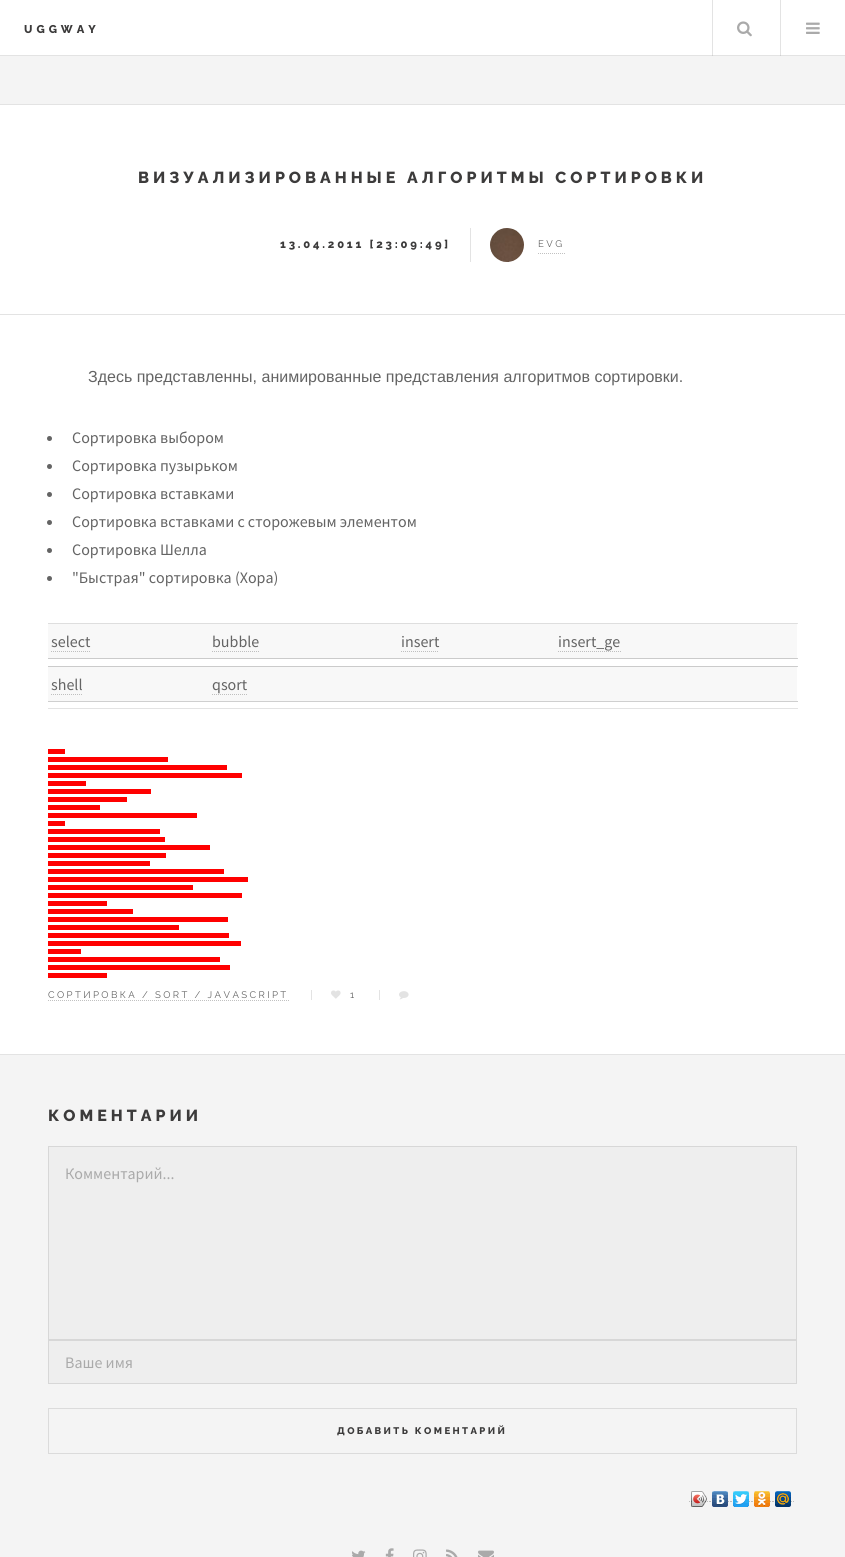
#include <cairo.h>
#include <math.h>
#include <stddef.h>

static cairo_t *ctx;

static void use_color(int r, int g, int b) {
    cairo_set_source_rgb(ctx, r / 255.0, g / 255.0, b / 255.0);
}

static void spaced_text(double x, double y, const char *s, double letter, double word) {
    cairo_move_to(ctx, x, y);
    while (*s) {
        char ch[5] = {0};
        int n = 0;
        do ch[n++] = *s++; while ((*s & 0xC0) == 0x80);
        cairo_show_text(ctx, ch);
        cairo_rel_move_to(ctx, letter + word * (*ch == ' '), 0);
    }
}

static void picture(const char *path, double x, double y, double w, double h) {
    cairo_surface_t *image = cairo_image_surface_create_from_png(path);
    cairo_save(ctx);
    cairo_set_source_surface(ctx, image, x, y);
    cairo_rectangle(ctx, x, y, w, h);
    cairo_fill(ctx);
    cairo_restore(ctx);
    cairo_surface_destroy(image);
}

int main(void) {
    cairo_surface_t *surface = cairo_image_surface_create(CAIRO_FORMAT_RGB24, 845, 1557);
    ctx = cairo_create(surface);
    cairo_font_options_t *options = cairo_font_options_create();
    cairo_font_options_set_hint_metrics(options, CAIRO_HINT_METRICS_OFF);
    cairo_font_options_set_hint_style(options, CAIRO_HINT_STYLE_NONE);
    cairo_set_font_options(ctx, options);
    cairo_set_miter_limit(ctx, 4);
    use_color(244, 244, 244);
    cairo_paint(ctx);
    use_color(255, 255, 255);
    cairo_rectangle(ctx, 0, 0, 845, 55);
    cairo_fill(ctx);
    use_color(227, 227, 227);
    cairo_rectangle(ctx, 780, 0, 1, 56);
    cairo_fill(ctx);
    cairo_rectangle(ctx, 712, 0, 1, 56);
    cairo_fill(ctx);
    cairo_rectangle(ctx, 0, 55, 845, 1);
    cairo_fill(ctx);
    use_color(207, 207, 207);
    cairo_rectangle(ctx, 780, 55, 1, 1);
    cairo_fill(ctx);
    cairo_rectangle(ctx, 712, 55, 1, 1);
    cairo_fill(ctx);
    cairo_select_font_face(ctx, "Raleway ExtraBold", CAIRO_FONT_SLANT_NORMAL, CAIRO_FONT_WEIGHT_NORMAL);
    cairo_set_font_size(ctx, 11.25);
    use_color(60, 59, 59);
    spaced_text(24, 33, "UGGWAY", 4, 0);
    picture("img1.png", 737, 21, 15, 16);
    picture("img2.png", 806, 22, 14, 12);
    use_color(255, 255, 255);
    cairo_rectangle(ctx, 0, 105, 845, 949);
    cairo_fill(ctx);
    use_color(227, 227, 227);
    cairo_rectangle(ctx, 797, 623, 1, 1);
    cairo_fill(ctx);
    use_color(207, 207, 207);
    cairo_rectangle(ctx, 797, 658, 1, 1);
    cairo_fill(ctx);
    cairo_rectangle(ctx, 797, 666, 1, 1);
    cairo_fill(ctx);
    use_color(227, 227, 227);
    cairo_rectangle(ctx, 0, 104, 845, 1);
    cairo_fill(ctx);
    cairo_rectangle(ctx, 0, 1054, 845, 1);
    cairo_fill(ctx);
    cairo_rectangle(ctx, 0, 314, 845, 1);
    cairo_fill(ctx);
    cairo_set_font_size(ctx, 16);
    use_color(60, 59, 59);
    spaced_text(138, 183, "ВИЗУАЛИЗИРОВАННЫЕ АЛГОРИТМЫ СОРТИРОВКИ", 4, 0);
    cairo_set_font_size(ctx, 11.25);
    spaced_text(280, 248, "13.04.2011 [23:09:49]", 2.8, 0);
    use_color(227, 227, 227);
    cairo_rectangle(ctx, 470, 228, 1, 34);
    cairo_fill(ctx);
    picture("img3.png", 490, 228, 34, 34);
    cairo_new_path(ctx);
    cairo_move_to(ctx, 538, 253.5);
    cairo_line_to(ctx, 565, 253.5);
    use_color(193, 193, 193);
    cairo_set_line_width(ctx, 1);
    cairo_set_dash(ctx, (double[]){1, 1}, 2, 0);
    cairo_stroke(ctx);
    cairo_select_font_face(ctx, "Raleway", CAIRO_FONT_SLANT_NORMAL, CAIRO_FONT_WEIGHT_NORMAL);
    cairo_set_font_size(ctx, 9.6);
    use_color(100, 100, 100);
    spaced_text(538, 247, "EVG", 2.4, 0);
    cairo_select_font_face(ctx, "Liberation Sans", CAIRO_FONT_SLANT_NORMAL, CAIRO_FONT_WEIGHT_NORMAL);
    cairo_set_font_size(ctx, 16);
    cairo_move_to(ctx, 88, 382);
    cairo_show_text(ctx, "Здесь представленны, анимированные представления алгоритмов сортировки.");
    cairo_new_path(ctx);
    cairo_arc(ctx, 49.5, 438.5, 2.5, 0, 2 * M_PI);
    cairo_fill(ctx);
    cairo_select_font_face(ctx, "Source Sans Pro", CAIRO_FONT_SLANT_NORMAL, CAIRO_FONT_WEIGHT_NORMAL);
    cairo_move_to(ctx, 72, 443);
    cairo_show_text(ctx, "Сортировка выбором");
    cairo_new_path(ctx);
    cairo_arc(ctx, 49.5, 466.5, 2.5, 0, 2 * M_PI);
    cairo_fill(ctx);
    cairo_move_to(ctx, 72, 471);
    cairo_show_text(ctx, "Сортировка пузырьком");
    cairo_new_path(ctx);
    cairo_arc(ctx, 49.5, 494.5, 2.5, 0, 2 * M_PI);
    cairo_fill(ctx);
    cairo_move_to(ctx, 72, 499);
    cairo_show_text(ctx, "Сортировка вставками");
    cairo_new_path(ctx);
    cairo_arc(ctx, 49.5, 522.5, 2.5, 0, 2 * M_PI);
    cairo_fill(ctx);
    cairo_move_to(ctx, 72, 527);
    cairo_show_text(ctx, "Сортировка вставками с сторожевым элементом");
    cairo_new_path(ctx);
    cairo_arc(ctx, 49.5, 550.5, 2.5, 0, 2 * M_PI);
    cairo_fill(ctx);
    cairo_move_to(ctx, 72, 555);
    cairo_show_text(ctx, "Сортировка Шелла");
    cairo_new_path(ctx);
    cairo_arc(ctx, 49.5, 578.5, 2.5, 0, 2 * M_PI);
    cairo_fill(ctx);
    cairo_move_to(ctx, 72, 583);
    cairo_show_text(ctx, "\"Быстрая\" сортировка (Хора)");
    use_color(248, 248, 248);
    cairo_rectangle(ctx, 48, 624, 749, 34);
    cairo_fill(ctx);
    use_color(222, 222, 222);
    cairo_rectangle(ctx, 48, 623, 749, 1);
    cairo_fill(ctx);
    use_color(203, 203, 203);
    cairo_rectangle(ctx, 48, 658, 749, 1);
    cairo_fill(ctx);
    use_color(100, 100, 100);
    cairo_move_to(ctx, 51, 647);
    cairo_show_text(ctx, "select");
    cairo_new_path(ctx);
    cairo_move_to(ctx, 51, 651.5);
    cairo_line_to(ctx, 91, 651.5);
    use_color(191, 191, 191);
    cairo_stroke(ctx);
    use_color(100, 100, 100);
    cairo_move_to(ctx, 212, 647);
    cairo_show_text(ctx, "bubble");
    cairo_new_path(ctx);
    cairo_move_to(ctx, 212, 651.5);
    cairo_line_to(ctx, 260, 651.5);
    use_color(191, 191, 191);
    cairo_stroke(ctx);
    use_color(100, 100, 100);
    cairo_move_to(ctx, 401, 647);
    cairo_show_text(ctx, "insert");
    cairo_new_path(ctx);
    cairo_move_to(ctx, 401, 651.5);
    cairo_line_to(ctx, 439, 651.5);
    use_color(191, 191, 191);
    cairo_stroke(ctx);
    use_color(100, 100, 100);
    cairo_move_to(ctx, 558, 647);
    cairo_show_text(ctx, "insert_ge");
    cairo_new_path(ctx);
    cairo_move_to(ctx, 558, 651.5);
    cairo_line_to(ctx, 621, 651.5);
    use_color(191, 191, 191);
    cairo_stroke(ctx);
    use_color(248, 248, 248);
    cairo_rectangle(ctx, 48, 667, 749, 34);
    cairo_fill(ctx);
    use_color(203, 203, 203);
    cairo_rectangle(ctx, 48, 666, 749, 1);
    cairo_fill(ctx);
    use_color(207, 207, 207);
    cairo_rectangle(ctx, 48, 701, 750, 1);
    cairo_fill(ctx);
    use_color(100, 100, 100);
    cairo_move_to(ctx, 51, 690);
    cairo_show_text(ctx, "shell");
    cairo_new_path(ctx);
    cairo_move_to(ctx, 51, 694.5);
    cairo_line_to(ctx, 83, 694.5);
    use_color(191, 191, 191);
    cairo_stroke(ctx);
    use_color(100, 100, 100);
    cairo_move_to(ctx, 212, 690);
    cairo_show_text(ctx, "qsort");
    cairo_new_path(ctx);
    cairo_move_to(ctx, 212, 694.5);
    cairo_line_to(ctx, 247, 694.5);
    use_color(191, 191, 191);
    cairo_stroke(ctx);
    use_color(227, 227, 227);
    cairo_rectangle(ctx, 48, 708, 750, 1);
    cairo_fill(ctx);
    use_color(255, 0, 0);
    cairo_rectangle(ctx, 48, 749, 17, 5);
    cairo_fill(ctx);
    cairo_rectangle(ctx, 48, 757, 120, 5);
    cairo_fill(ctx);
    cairo_rectangle(ctx, 48, 765, 179, 5);
    cairo_fill(ctx);
    cairo_rectangle(ctx, 48, 773, 194, 5);
    cairo_fill(ctx);
    cairo_rectangle(ctx, 48, 781, 38, 5);
    cairo_fill(ctx);
    cairo_rectangle(ctx, 48, 789, 103, 5);
    cairo_fill(ctx);
    cairo_rectangle(ctx, 48, 797, 79, 5);
    cairo_fill(ctx);
    cairo_rectangle(ctx, 48, 805, 52, 5);
    cairo_fill(ctx);
    cairo_rectangle(ctx, 48, 813, 149, 5);
    cairo_fill(ctx);
    cairo_rectangle(ctx, 48, 821, 17, 5);
    cairo_fill(ctx);
    cairo_rectangle(ctx, 48, 829, 112, 5);
    cairo_fill(ctx);
    cairo_rectangle(ctx, 48, 837, 117, 5);
    cairo_fill(ctx);
    cairo_rectangle(ctx, 48, 845, 162, 5);
    cairo_fill(ctx);
    cairo_rectangle(ctx, 48, 853, 118, 5);
    cairo_fill(ctx);
    cairo_rectangle(ctx, 48, 861, 102, 5);
    cairo_fill(ctx);
    cairo_rectangle(ctx, 48, 869, 176, 5);
    cairo_fill(ctx);
    cairo_rectangle(ctx, 48, 877, 200, 5);
    cairo_fill(ctx);
    cairo_rectangle(ctx, 48, 885, 145, 5);
    cairo_fill(ctx);
    cairo_rectangle(ctx, 48, 893, 194, 5);
    cairo_fill(ctx);
    cairo_rectangle(ctx, 48, 901, 59, 5);
    cairo_fill(ctx);
    cairo_rectangle(ctx, 48, 909, 85, 5);
    cairo_fill(ctx);
    cairo_rectangle(ctx, 48, 917, 180, 5);
    cairo_fill(ctx);
    cairo_rectangle(ctx, 48, 925, 131, 5);
    cairo_fill(ctx);
    cairo_rectangle(ctx, 48, 933, 181, 5);
    cairo_fill(ctx);
    cairo_rectangle(ctx, 48, 941, 193, 5);
    cairo_fill(ctx);
    cairo_rectangle(ctx, 48, 949, 33, 5);
    cairo_fill(ctx);
    cairo_rectangle(ctx, 48, 957, 172, 5);
    cairo_fill(ctx);
    cairo_rectangle(ctx, 48, 965, 182, 5);
    cairo_fill(ctx);
    cairo_rectangle(ctx, 48, 973, 59, 5);
    cairo_fill(ctx);
    cairo_select_font_face(ctx, "Raleway", CAIRO_FONT_SLANT_NORMAL, CAIRO_FONT_WEIGHT_NORMAL);
    cairo_set_font_size(ctx, 9.6);
    use_color(100, 100, 100);
    spaced_text(48, 998, "СОРТИРОВКА / SORT / JAVASCRIPT", 2.4, 0);
    cairo_new_path(ctx);
    cairo_move_to(ctx, 48, 1000.5);
    cairo_line_to(ctx, 289, 1000.5);
    use_color(193, 193, 193);
    cairo_stroke(ctx);
    use_color(227, 227, 227);
    cairo_rectangle(ctx, 311, 990, 1, 10);
    cairo_fill(ctx);
    picture("img4.png", 331, 990, 10, 9);
    use_color(100, 100, 100);
    spaced_text(350, 998, "1", 2.4, 0);
    use_color(227, 227, 227);
    cairo_rectangle(ctx, 379, 990, 1, 10);
    cairo_fill(ctx);
    picture("img5.png", 399, 991, 10, 9);
    cairo_select_font_face(ctx, "Raleway ExtraBold", CAIRO_FONT_SLANT_NORMAL, CAIRO_FONT_WEIGHT_NORMAL);
    cairo_set_font_size(ctx, 16);
    use_color(60, 59, 59);
    spaced_text(48, 1121, "КОМЕНТАРИИ", 4, 0);
    use_color(238, 238, 238);
    cairo_rectangle(ctx, 48.5, 1146.5, 748, 193);
    cairo_fill_preserve(ctx);
    use_color(215, 215, 215);
    cairo_set_dash(ctx, NULL, 0, 0);
    cairo_stroke(ctx);
    cairo_select_font_face(ctx, "Source Sans Pro", CAIRO_FONT_SLANT_NORMAL, CAIRO_FONT_WEIGHT_NORMAL);
    use_color(170, 170, 170);
    cairo_move_to(ctx, 65, 1179);
    cairo_show_text(ctx, "Комментарий...");
    use_color(238, 238, 238);
    cairo_rectangle(ctx, 48.5, 1340.5, 748, 43);
    cairo_fill_preserve(ctx);
    use_color(215, 215, 215);
    cairo_stroke(ctx);
    use_color(170, 170, 170);
    cairo_move_to(ctx, 65, 1368);
    cairo_show_text(ctx, "Ваше имя");
    cairo_rectangle(ctx, 48.5, 1408.5, 748, 45);
    use_color(219, 219, 219);
    cairo_stroke(ctx);
    cairo_select_font_face(ctx, "Raleway ExtraBold", CAIRO_FONT_SLANT_NORMAL, CAIRO_FONT_WEIGHT_NORMAL);
    cairo_set_font_size(ctx, 9.6);
    use_color(60, 59, 59);
    spaced_text(337, 1434, "ДОБАВИТЬ КОМЕНТАРИЙ", 2.4, 0);
    cairo_new_path(ctx);
    cairo_move_to(ctx, 689, 1501.5);
    cairo_line_to(ctx, 710, 1501.5);
    use_color(189, 189, 189);
    cairo_set_dash(ctx, (double[]){1, 1}, 2, 0);
    cairo_stroke(ctx);
    picture("img6.png", 691, 1491, 16, 16);
    picture("img7.png", 691, 1491, 16, 16);
    cairo_new_path(ctx);
    cairo_move_to(ctx, 710, 1501.5);
    cairo_line_to(ctx, 731, 1501.5);
    cairo_move_to(ctx, 731, 1501.5);
    cairo_line_to(ctx, 752, 1501.5);
    cairo_move_to(ctx, 752, 1501.5);
    cairo_line_to(ctx, 773, 1501.5);
    cairo_stroke(ctx);
    picture("img8.png", 712, 1491, 16, 16);
    picture("img9.png", 733, 1491, 16, 16);
    picture("img10.png", 754, 1491, 16, 16);
    cairo_new_path(ctx);
    cairo_move_to(ctx, 773, 1501.5);
    cairo_line_to(ctx, 794, 1501.5);
    cairo_stroke(ctx);
    picture("img11.png", 775, 1491, 16, 16);
    picture("img12.png", 352, 1550, 14, 7);
    picture("img13.png", 385, 1548, 9, 9);
    picture("img14.png", 413, 1549, 14, 8);
    picture("img15.png", 446, 1549, 12, 8);
    picture("img16.png", 478, 1550, 16, 7);
    cairo_surface_write_to_png(surface, "result.png");
    cairo_font_options_destroy(options);
    cairo_destroy(ctx);
    cairo_surface_destroy(surface);
    return 0;
}
